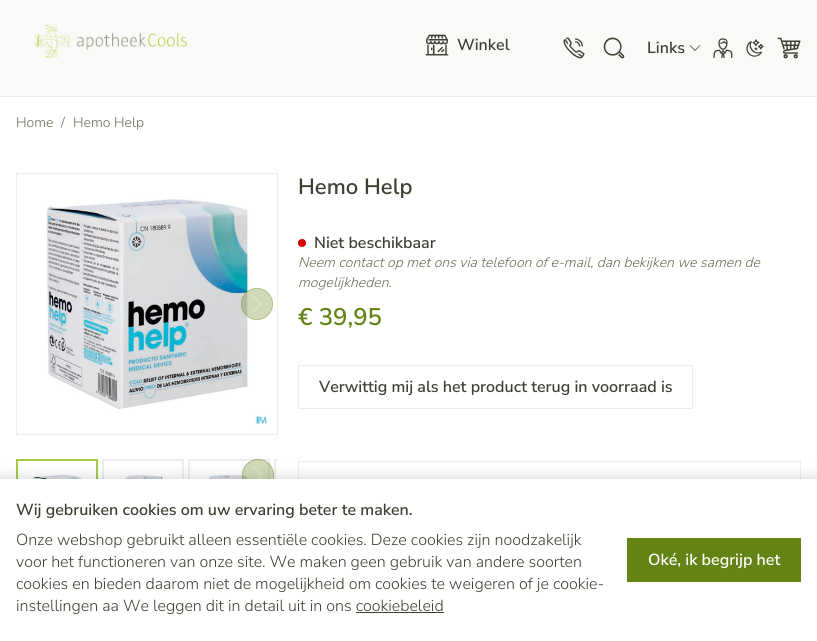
#include <cairo.h>
#include <math.h>
#include <stddef.h>

static cairo_t *ctx;

static void use_color(int r, int g, int b) {
    cairo_set_source_rgb(ctx, r / 255.0, g / 255.0, b / 255.0);
}

static void round_rect(double x, double y, double w, double h, double r) {
    cairo_new_sub_path(ctx);
    cairo_arc(ctx, x + w - r, y + h - r, r, 0, M_PI / 2);
    cairo_arc(ctx, x + r, y + h - r, r, M_PI / 2, M_PI);
    cairo_arc(ctx, x + r, y + r, r, M_PI, 1.5 * M_PI);
    cairo_arc(ctx, x + w - r, y + r, r, 1.5 * M_PI, 2 * M_PI);
    cairo_close_path(ctx);
}

static void shadow(double x, double y, double w, double h, double r, double blur, double alpha) {
    cairo_push_group_with_content(ctx, CAIRO_CONTENT_ALPHA);
    cairo_set_operator(ctx, CAIRO_OPERATOR_SOURCE);
    for (int i = 15; i >= -15 && fmin(w, h) + blur * i / 3 > 0; i -= 2) {
        double e = blur * i / 6;
        cairo_set_source_rgba(ctx, 0, 0, 0, alpha * erfc((i - 1) / 8.5) / 2);
        round_rect(x - e, y - e, w + 2 * e, h + 2 * e, fmax(0, fmin(r + e + blur * .6, fmin(w, h) / 2 + e)));
        cairo_fill(ctx);
    }
    cairo_pattern_t *soft = cairo_pop_group(ctx);
    cairo_mask(ctx, soft);
    cairo_pattern_destroy(soft);
}

static void picture(const char *path, double x, double y, double w, double h) {
    cairo_surface_t *image = cairo_image_surface_create_from_png(path);
    cairo_save(ctx);
    cairo_set_source_surface(ctx, image, x, y);
    cairo_rectangle(ctx, x, y, w, h);
    cairo_fill(ctx);
    cairo_restore(ctx);
    cairo_surface_destroy(image);
}

int main(void) {
    cairo_surface_t *surface = cairo_image_surface_create(CAIRO_FORMAT_RGB24, 817, 641);
    ctx = cairo_create(surface);
    cairo_font_options_t *options = cairo_font_options_create();
    cairo_font_options_set_hint_metrics(options, CAIRO_HINT_METRICS_OFF);
    cairo_font_options_set_hint_style(options, CAIRO_HINT_STYLE_NONE);
    cairo_set_font_options(ctx, options);
    cairo_set_miter_limit(ctx, 4);
    use_color(255, 255, 255);
    cairo_paint(ctx);
    use_color(237, 238, 233);
    cairo_rectangle(ctx, 0, 96, 817, 1);
    cairo_fill(ctx);
    use_color(249, 250, 248);
    cairo_rectangle(ctx, 0, 0, 817, 96);
    cairo_fill(ctx);
    picture("img1.png", 34, 24, 154, 34);
    picture("img2.png", 425, 34, 24, 22);
    cairo_select_font_face(ctx, "Nunito Sans SemiBold", CAIRO_FONT_SLANT_NORMAL, CAIRO_FONT_WEIGHT_NORMAL);
    cairo_set_font_size(ctx, 16);
    use_color(61, 65, 52);
    cairo_move_to(ctx, 457, 50);
    cairo_show_text(ctx, "Winkel");
    picture("img3.png", 563, 37, 22, 22);
    picture("img4.png", 603, 37, 22, 22);
    cairo_move_to(ctx, 647, 53);
    cairo_show_text(ctx, "Links");
    picture("img5.png", 689, 45, 12, 6);
    picture("img6.png", 713, 38, 20, 20);
    picture("img7.png", 746, 39, 18, 18);
    picture("img8.png", 777, 37, 24, 22);
    cairo_select_font_face(ctx, "Nunito Sans Light", CAIRO_FONT_SLANT_NORMAL, CAIRO_FONT_WEIGHT_NORMAL);
    cairo_set_font_size(ctx, 14);
    use_color(105, 111, 89);
    cairo_move_to(ctx, 16, 127);
    cairo_show_text(ctx, "Home");
    cairo_move_to(ctx, 61, 127);
    cairo_show_text(ctx, "/");
    cairo_move_to(ctx, 73, 127);
    cairo_show_text(ctx, "Hemo Help");
    cairo_rectangle(ctx, 16.5, 173.5, 261, 261);
    use_color(237, 238, 233);
    cairo_set_line_width(ctx, 1);
    cairo_stroke(ctx);
    picture("img9.png", 46, 199, 222, 226);
    cairo_set_source_rgba(ctx, 0.388, 0.514, 0.078, 0.3);
    cairo_arc(ctx, 257, 304, 16, 0, 2 * M_PI);
    cairo_fill(ctx);
    cairo_arc(ctx, 257, 304, 15.5, 0, 2 * M_PI);
    cairo_stroke(ctx);
    picture("img10.png", 252, 295, 10, 18);
    cairo_rectangle(ctx, 17, 460, 80, 80);
    use_color(166, 203, 68);
    cairo_set_line_width(ctx, 2);
    cairo_stroke(ctx);
    picture("img11.png", 33, 474, 54, 5);
    cairo_rectangle(ctx, 103, 460, 80, 80);
    use_color(237, 238, 233);
    cairo_stroke(ctx);
    picture("img12.png", 123, 475, 50, 4);
    cairo_rectangle(ctx, 189, 460, 80, 80);
    cairo_stroke(ctx);
    picture("img13.png", 209, 475, 50, 4);
    cairo_rectangle(ctx, 298.5, 461.5, 502, 59);
    cairo_set_line_width(ctx, 1);
    cairo_stroke(ctx);
    cairo_save(ctx);
    cairo_rectangle(ctx, 16, 459, 262, 82);
    cairo_clip(ctx);
    cairo_rectangle(ctx, 275, 460, 80, 80);
    cairo_set_line_width(ctx, 2);
    cairo_stroke(ctx);
    cairo_restore(ctx);
    cairo_set_source_rgba(ctx, 0.388, 0.514, 0.078, 0.3);
    cairo_arc(ctx, 258, 475, 16, 0, 2 * M_PI);
    cairo_fill(ctx);
    cairo_arc(ctx, 258, 475, 15.5, 0, 2 * M_PI);
    cairo_stroke(ctx);
    picture("img14.png", 253, 466, 10, 13);
    cairo_select_font_face(ctx, "Nunito Sans SemiBold", CAIRO_FONT_SLANT_NORMAL, CAIRO_FONT_WEIGHT_NORMAL);
    cairo_set_font_size(ctx, 22);
    use_color(61, 65, 52);
    cairo_move_to(ctx, 298, 194);
    cairo_show_text(ctx, "Hemo Help");
    use_color(217, 0, 0);
    cairo_new_path(ctx);
    cairo_arc(ctx, 302, 243, 4, 0, 2 * M_PI);
    cairo_fill(ctx);
    cairo_set_font_size(ctx, 16);
    use_color(61, 65, 52);
    cairo_move_to(ctx, 314, 248);
    cairo_show_text(ctx, "Niet beschikbaar");
    cairo_select_font_face(ctx, "Nunito Sans Light", CAIRO_FONT_SLANT_ITALIC, CAIRO_FONT_WEIGHT_NORMAL);
    cairo_set_font_size(ctx, 14);
    use_color(105, 111, 89);
    cairo_move_to(ctx, 298, 267);
    cairo_show_text(ctx, "Neem contact op met ons via telefoon of e-mail, dan bekijken we samen de");
    cairo_move_to(ctx, 298, 287);
    cairo_show_text(ctx, "mogelijkheden.");
    cairo_select_font_face(ctx, "Nunito Sans SemiBold", CAIRO_FONT_SLANT_NORMAL, CAIRO_FONT_WEIGHT_NORMAL);
    cairo_set_font_size(ctx, 24);
    use_color(99, 131, 20);
    cairo_move_to(ctx, 298, 325);
    cairo_show_text(ctx, "€ 39,95");
    cairo_rectangle(ctx, 298.5, 365.5, 394, 43);
    use_color(237, 238, 233);
    cairo_stroke(ctx);
    cairo_set_font_size(ctx, 16);
    use_color(61, 65, 52);
    cairo_move_to(ctx, 319, 392);
    cairo_show_text(ctx, "Verwittig mij als het product terug in voorraad is");
    use_color(0, 0, 0);
    shadow(0, 479, 817, 162, 0, 7.5, 0.2);
    use_color(255, 255, 255);
    cairo_rectangle(ctx, 0, 479, 817, 162);
    cairo_fill(ctx);
    use_color(61, 65, 52);
    cairo_move_to(ctx, 16, 515);
    cairo_show_text(ctx, "Wij gebruiken cookies om uw ervaring beter te maken.");
    cairo_select_font_face(ctx, "Nunito Sans Light", CAIRO_FONT_SLANT_NORMAL, CAIRO_FONT_WEIGHT_NORMAL);
    cairo_move_to(ctx, 16, 545);
    cairo_show_text(ctx, "Onze webshop gebruikt alleen essentiële cookies. Deze cookies zijn noodzakelijk");
    cairo_move_to(ctx, 16, 567);
    cairo_show_text(ctx, "voor het functioneren van onze site. We maken geen gebruik van andere soorten");
    cairo_move_to(ctx, 16, 589);
    cairo_show_text(ctx, "cookies en bieden daarom niet de mogelijkheid om cookies te weigeren of je cookie-");
    cairo_move_to(ctx, 16, 611);
    cairo_show_text(ctx, "instellingen aa We leggen dit in detail uit in ons cookiebeleid");
    cairo_rectangle(ctx, 356, 612, 88, 1);
    cairo_fill(ctx);
    use_color(99, 131, 20);
    cairo_rectangle(ctx, 627, 538, 174, 44);
    cairo_fill(ctx);
    cairo_select_font_face(ctx, "Nunito Sans SemiBold", CAIRO_FONT_SLANT_NORMAL, CAIRO_FONT_WEIGHT_NORMAL);
    use_color(255, 255, 255);
    cairo_move_to(ctx, 648, 565);
    cairo_show_text(ctx, "Oké, ik begrijp het");
    cairo_surface_write_to_png(surface, "result.png");
    cairo_font_options_destroy(options);
    cairo_destroy(ctx);
    cairo_surface_destroy(surface);
    return 0;
}
